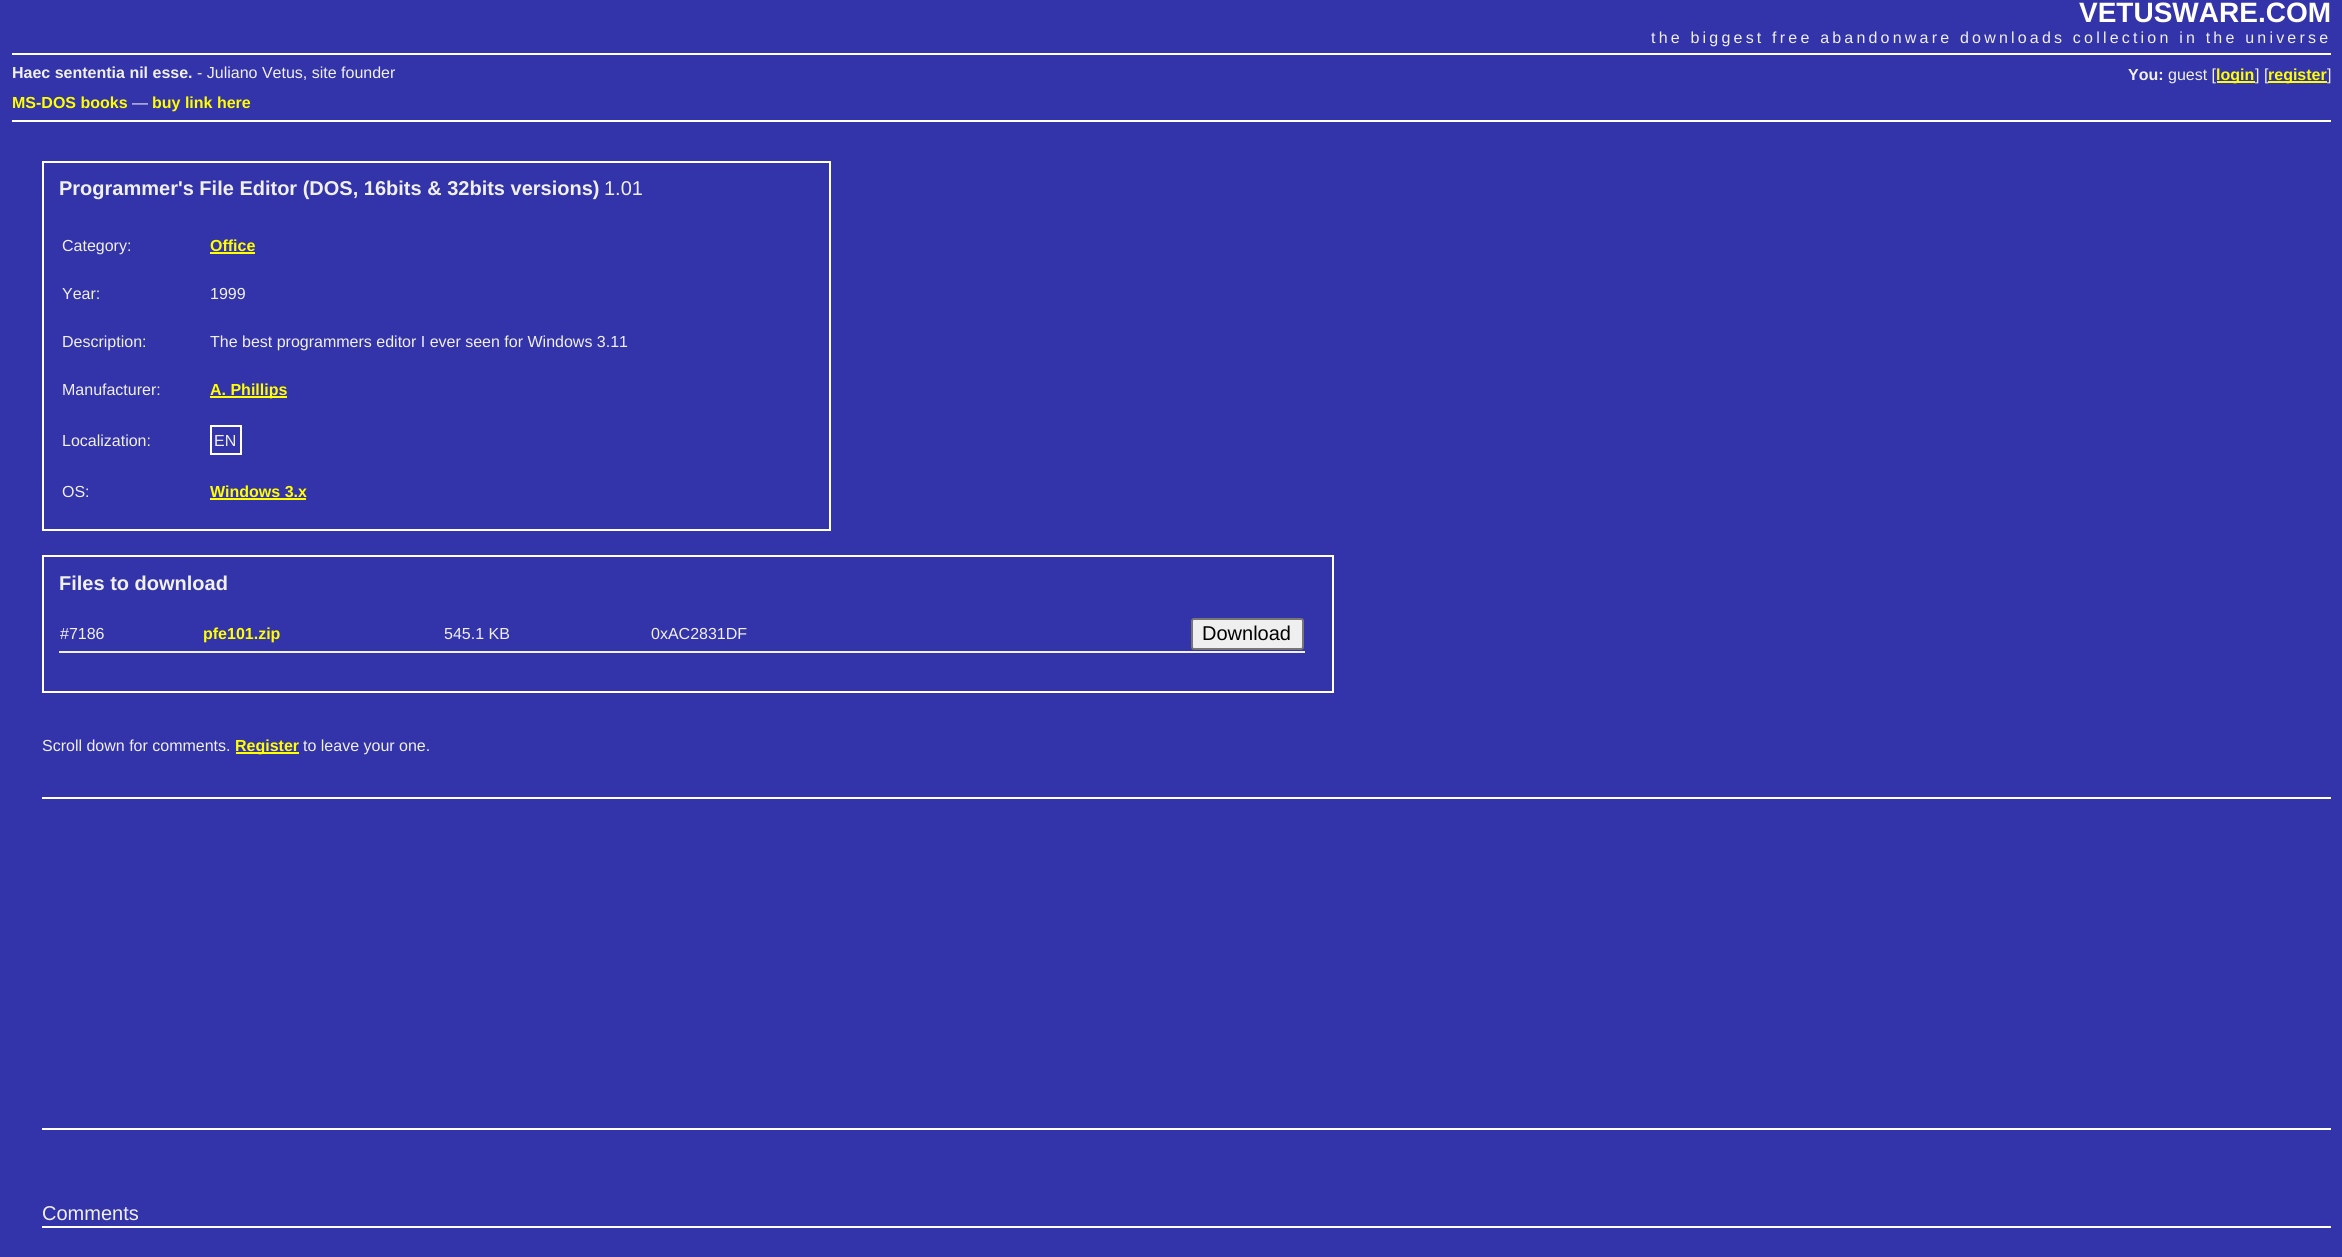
#include <cairo.h>
#include <math.h>
#include <stddef.h>

static cairo_t *ctx;

static void use_color(int r, int g, int b) {
    cairo_set_source_rgb(ctx, r / 255.0, g / 255.0, b / 255.0);
}

static void spaced_text(double x, double y, const char *s, double letter, double word) {
    cairo_move_to(ctx, x, y);
    while (*s) {
        char ch[5] = {0};
        int n = 0;
        do ch[n++] = *s++; while ((*s & 0xC0) == 0x80);
        cairo_show_text(ctx, ch);
        cairo_rel_move_to(ctx, letter + word * (*ch == ' '), 0);
    }
}

static void round_rect(double x, double y, double w, double h, double r) {
    cairo_new_sub_path(ctx);
    cairo_arc(ctx, x + w - r, y + h - r, r, 0, M_PI / 2);
    cairo_arc(ctx, x + r, y + h - r, r, M_PI / 2, M_PI);
    cairo_arc(ctx, x + r, y + r, r, M_PI, 1.5 * M_PI);
    cairo_arc(ctx, x + w - r, y + r, r, 1.5 * M_PI, 2 * M_PI);
    cairo_close_path(ctx);
}

int main(void) {
    cairo_surface_t *surface = cairo_image_surface_create(CAIRO_FORMAT_RGB24, 2342, 1257);
    ctx = cairo_create(surface);
    cairo_font_options_t *options = cairo_font_options_create();
    cairo_font_options_set_hint_metrics(options, CAIRO_HINT_METRICS_OFF);
    cairo_font_options_set_hint_style(options, CAIRO_HINT_STYLE_NONE);
    cairo_set_font_options(ctx, options);
    cairo_set_miter_limit(ctx, 4);
    use_color(51, 51, 170);
    cairo_paint(ctx);
    use_color(255, 255, 255);
    cairo_rectangle(ctx, 12, 120, 2319, 2);
    cairo_fill(ctx);
    cairo_select_font_face(ctx, "Liberation Sans", CAIRO_FONT_SLANT_NORMAL, CAIRO_FONT_WEIGHT_BOLD);
    cairo_set_font_size(ctx, 28);
    cairo_move_to(ctx, 2079, 22);
    cairo_show_text(ctx, "VETUSWARE.COM");
    cairo_rectangle(ctx, 12, 53, 2319, 2);
    cairo_fill(ctx);
    cairo_select_font_face(ctx, "Liberation Sans", CAIRO_FONT_SLANT_NORMAL, CAIRO_FONT_WEIGHT_NORMAL);
    cairo_set_font_size(ctx, 16);
    use_color(240, 240, 240);
    spaced_text(1651, 43, "the biggest free abandonware downloads collection in the universe", 3.2, 0);
    cairo_select_font_face(ctx, "Liberation Sans", CAIRO_FONT_SLANT_NORMAL, CAIRO_FONT_WEIGHT_BOLD);
    cairo_move_to(ctx, 12, 78);
    cairo_show_text(ctx, "Haec sententia nil esse.");
    cairo_select_font_face(ctx, "Liberation Sans", CAIRO_FONT_SLANT_NORMAL, CAIRO_FONT_WEIGHT_NORMAL);
    cairo_move_to(ctx, 197, 78);
    cairo_show_text(ctx, "- Juliano Vetus, site founder");
    cairo_select_font_face(ctx, "Liberation Sans", CAIRO_FONT_SLANT_NORMAL, CAIRO_FONT_WEIGHT_BOLD);
    cairo_move_to(ctx, 2128, 80);
    cairo_show_text(ctx, "You:");
    cairo_select_font_face(ctx, "Liberation Sans", CAIRO_FONT_SLANT_NORMAL, CAIRO_FONT_WEIGHT_NORMAL);
    cairo_move_to(ctx, 2168, 80);
    cairo_show_text(ctx, "guest [");
    use_color(255, 255, 0);
    cairo_rectangle(ctx, 2217, 81, 38, 2);
    cairo_fill(ctx);
    cairo_select_font_face(ctx, "Liberation Sans", CAIRO_FONT_SLANT_NORMAL, CAIRO_FONT_WEIGHT_BOLD);
    cairo_move_to(ctx, 2216, 80);
    cairo_show_text(ctx, "login");
    cairo_select_font_face(ctx, "Liberation Sans", CAIRO_FONT_SLANT_NORMAL, CAIRO_FONT_WEIGHT_NORMAL);
    use_color(240, 240, 240);
    cairo_move_to(ctx, 2255, 80);
    cairo_show_text(ctx, "] [");
    use_color(255, 255, 0);
    cairo_rectangle(ctx, 2268, 81, 59, 2);
    cairo_fill(ctx);
    cairo_select_font_face(ctx, "Liberation Sans", CAIRO_FONT_SLANT_NORMAL, CAIRO_FONT_WEIGHT_BOLD);
    cairo_move_to(ctx, 2268, 80);
    cairo_show_text(ctx, "register");
    cairo_select_font_face(ctx, "Liberation Sans", CAIRO_FONT_SLANT_NORMAL, CAIRO_FONT_WEIGHT_NORMAL);
    use_color(240, 240, 240);
    cairo_move_to(ctx, 2327, 80);
    cairo_show_text(ctx, "]");
    cairo_select_font_face(ctx, "Liberation Sans", CAIRO_FONT_SLANT_NORMAL, CAIRO_FONT_WEIGHT_BOLD);
    use_color(255, 255, 0);
    cairo_move_to(ctx, 12, 108);
    cairo_show_text(ctx, "MS-DOS books");
    cairo_select_font_face(ctx, "Liberation Sans", CAIRO_FONT_SLANT_NORMAL, CAIRO_FONT_WEIGHT_NORMAL);
    use_color(240, 240, 240);
    cairo_move_to(ctx, 132, 108);
    cairo_show_text(ctx, "—");
    cairo_select_font_face(ctx, "Liberation Sans", CAIRO_FONT_SLANT_NORMAL, CAIRO_FONT_WEIGHT_BOLD);
    use_color(255, 255, 0);
    cairo_move_to(ctx, 152, 108);
    cairo_show_text(ctx, "buy link here");
    cairo_rectangle(ctx, 43, 162, 787, 368);
    use_color(255, 255, 255);
    cairo_stroke(ctx);
    cairo_set_font_size(ctx, 20);
    use_color(240, 240, 240);
    cairo_move_to(ctx, 59, 195);
    cairo_show_text(ctx, "Programmer's File Editor (DOS, 16bits & 32bits versions)");
    cairo_select_font_face(ctx, "Liberation Sans", CAIRO_FONT_SLANT_NORMAL, CAIRO_FONT_WEIGHT_NORMAL);
    cairo_move_to(ctx, 604, 195);
    cairo_show_text(ctx, "1.01");
    cairo_set_font_size(ctx, 16);
    cairo_move_to(ctx, 62, 251);
    cairo_show_text(ctx, "Category:");
    cairo_select_font_face(ctx, "Liberation Sans", CAIRO_FONT_SLANT_NORMAL, CAIRO_FONT_WEIGHT_BOLD);
    use_color(255, 255, 0);
    cairo_move_to(ctx, 210, 251);
    cairo_show_text(ctx, "Office");
    cairo_rectangle(ctx, 210, 252, 45, 2);
    cairo_fill(ctx);
    cairo_select_font_face(ctx, "Liberation Sans", CAIRO_FONT_SLANT_NORMAL, CAIRO_FONT_WEIGHT_NORMAL);
    use_color(240, 240, 240);
    cairo_move_to(ctx, 62, 299);
    cairo_show_text(ctx, "Year:");
    cairo_move_to(ctx, 210, 299);
    cairo_show_text(ctx, "1999");
    cairo_move_to(ctx, 62, 347);
    cairo_show_text(ctx, "Description:");
    cairo_move_to(ctx, 210, 347);
    cairo_show_text(ctx, "The best programmers editor I ever seen for Windows 3.11");
    cairo_move_to(ctx, 62, 395);
    cairo_show_text(ctx, "Manufacturer:");
    use_color(255, 255, 0);
    cairo_rectangle(ctx, 210, 396, 77, 2);
    cairo_fill(ctx);
    cairo_select_font_face(ctx, "Liberation Sans", CAIRO_FONT_SLANT_NORMAL, CAIRO_FONT_WEIGHT_BOLD);
    cairo_move_to(ctx, 210, 395);
    cairo_show_text(ctx, "A. Phillips");
    cairo_select_font_face(ctx, "Liberation Sans", CAIRO_FONT_SLANT_NORMAL, CAIRO_FONT_WEIGHT_NORMAL);
    use_color(240, 240, 240);
    cairo_move_to(ctx, 62, 446);
    cairo_show_text(ctx, "Localization:");
    cairo_rectangle(ctx, 211, 426, 30, 28);
    use_color(255, 255, 255);
    cairo_stroke(ctx);
    use_color(240, 240, 240);
    cairo_move_to(ctx, 214, 446);
    cairo_show_text(ctx, "EN");
    cairo_move_to(ctx, 62, 497);
    cairo_show_text(ctx, "OS:");
    cairo_select_font_face(ctx, "Liberation Sans", CAIRO_FONT_SLANT_NORMAL, CAIRO_FONT_WEIGHT_BOLD);
    use_color(255, 255, 0);
    cairo_move_to(ctx, 210, 497);
    cairo_show_text(ctx, "Windows 3.x");
    cairo_rectangle(ctx, 210, 498, 96, 2);
    cairo_fill(ctx);
    cairo_rectangle(ctx, 43, 556, 1290, 136);
    use_color(255, 255, 255);
    cairo_stroke(ctx);
    cairo_set_font_size(ctx, 20);
    use_color(240, 240, 240);
    cairo_move_to(ctx, 59, 590);
    cairo_show_text(ctx, "Files to download");
    cairo_select_font_face(ctx, "Liberation Sans", CAIRO_FONT_SLANT_NORMAL, CAIRO_FONT_WEIGHT_NORMAL);
    cairo_set_font_size(ctx, 16);
    cairo_move_to(ctx, 60, 639);
    cairo_show_text(ctx, "#7186");
    cairo_select_font_face(ctx, "Liberation Sans", CAIRO_FONT_SLANT_NORMAL, CAIRO_FONT_WEIGHT_BOLD);
    use_color(255, 255, 0);
    cairo_move_to(ctx, 203, 639);
    cairo_show_text(ctx, "pfe101.zip");
    cairo_select_font_face(ctx, "Liberation Sans", CAIRO_FONT_SLANT_NORMAL, CAIRO_FONT_WEIGHT_NORMAL);
    use_color(240, 240, 240);
    cairo_move_to(ctx, 444, 639);
    cairo_show_text(ctx, "545.1 KB");
    cairo_move_to(ctx, 651, 639);
    cairo_show_text(ctx, "0xAC2831DF");
    cairo_rectangle(ctx, 59, 651, 1246, 2);
    cairo_fill(ctx);
    use_color(239, 239, 239);
    round_rect(1192, 619, 111, 30, 2);
    cairo_fill_preserve(ctx);
    use_color(118, 118, 118);
    cairo_stroke(ctx);
    cairo_set_font_size(ctx, 20);
    use_color(0, 0, 0);
    cairo_move_to(ctx, 1202, 640);
    cairo_show_text(ctx, "Download");
    cairo_set_font_size(ctx, 16);
    use_color(240, 240, 240);
    cairo_move_to(ctx, 42, 751);
    cairo_show_text(ctx, "Scroll down for comments.");
    use_color(255, 255, 0);
    cairo_rectangle(ctx, 236, 752, 63, 2);
    cairo_fill(ctx);
    cairo_select_font_face(ctx, "Liberation Sans", CAIRO_FONT_SLANT_NORMAL, CAIRO_FONT_WEIGHT_BOLD);
    cairo_move_to(ctx, 235, 751);
    cairo_show_text(ctx, "Register");
    cairo_select_font_face(ctx, "Liberation Sans", CAIRO_FONT_SLANT_NORMAL, CAIRO_FONT_WEIGHT_NORMAL);
    use_color(240, 240, 240);
    cairo_move_to(ctx, 303, 751);
    cairo_show_text(ctx, "to leave your one.");
    use_color(255, 255, 255);
    cairo_rectangle(ctx, 42, 797, 2289, 2);
    cairo_fill(ctx);
    cairo_rectangle(ctx, 42, 1128, 2289, 2);
    cairo_fill(ctx);
    cairo_rectangle(ctx, 42, 1226, 2289, 2);
    cairo_fill(ctx);
    cairo_set_font_size(ctx, 20);
    use_color(240, 240, 240);
    cairo_move_to(ctx, 42, 1220);
    cairo_show_text(ctx, "Comments");
    cairo_surface_write_to_png(surface, "result.png");
    cairo_font_options_destroy(options);
    cairo_destroy(ctx);
    cairo_surface_destroy(surface);
    return 0;
}
